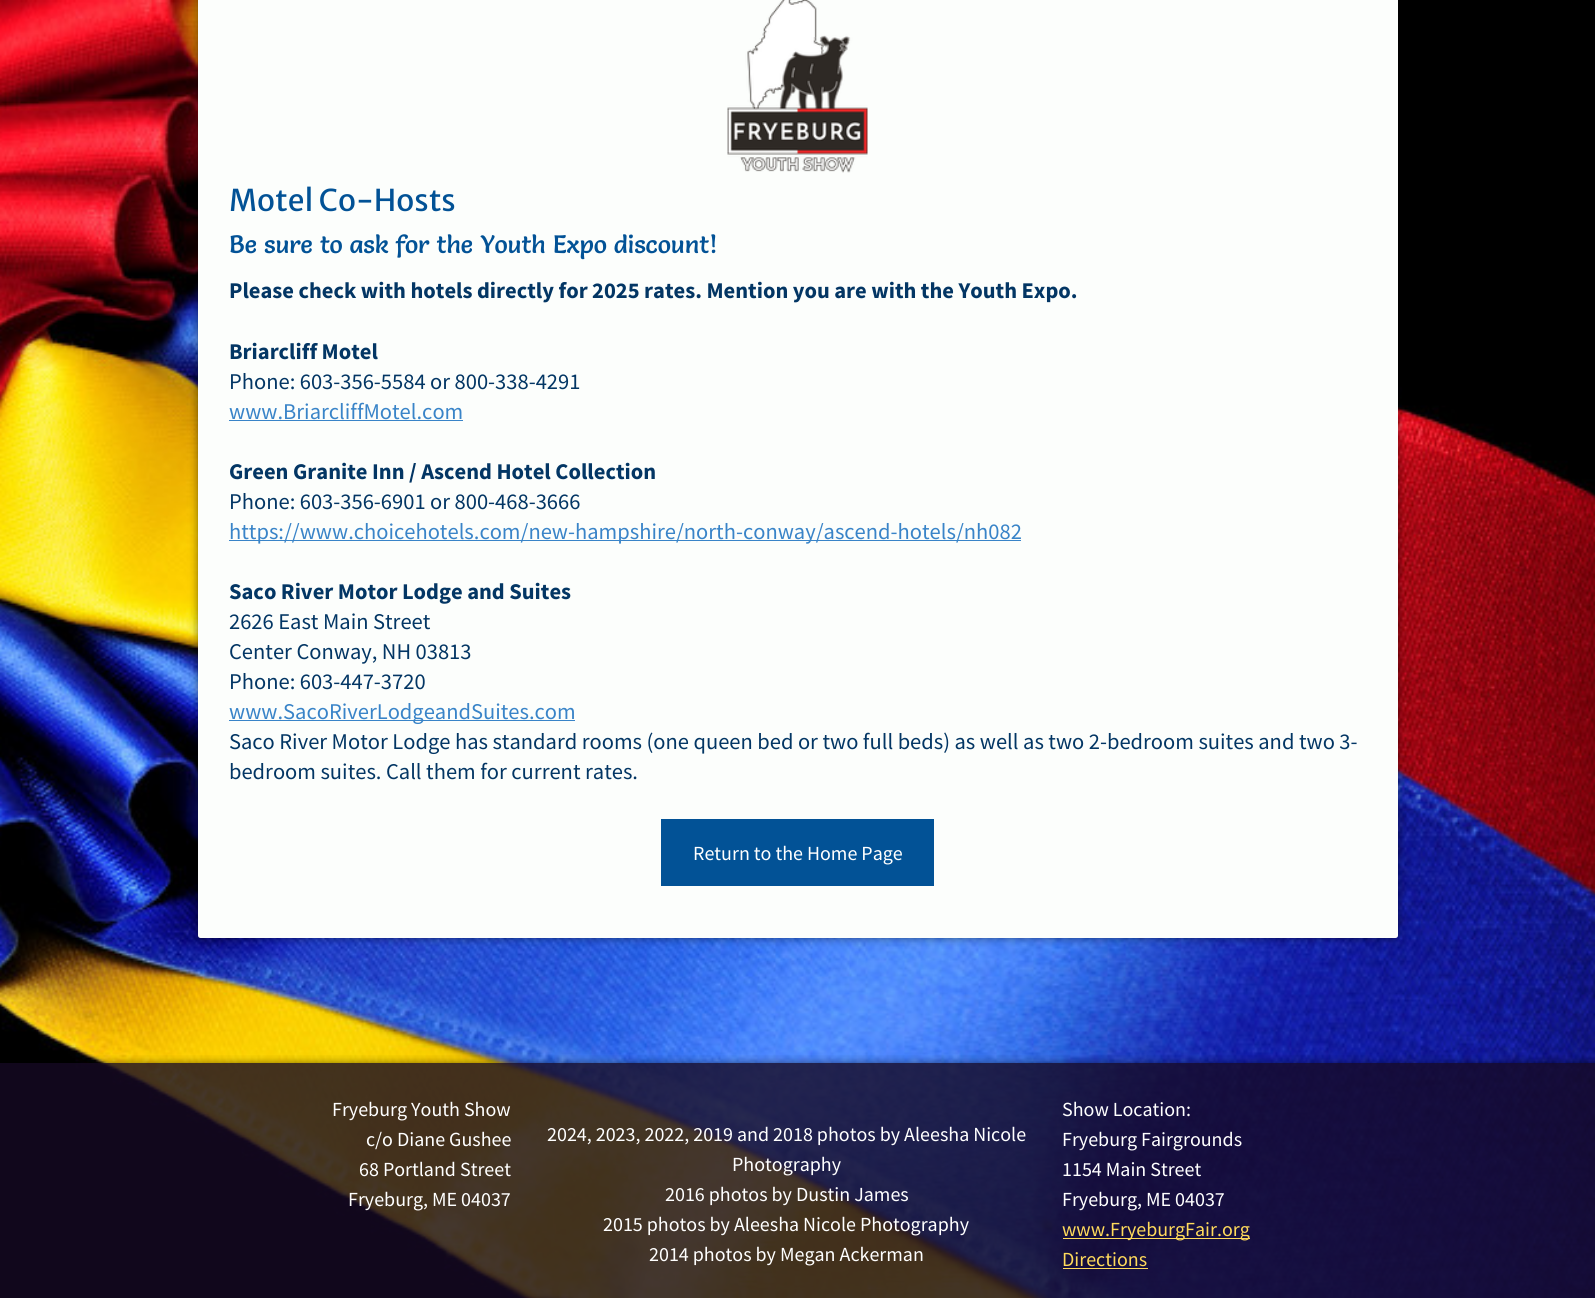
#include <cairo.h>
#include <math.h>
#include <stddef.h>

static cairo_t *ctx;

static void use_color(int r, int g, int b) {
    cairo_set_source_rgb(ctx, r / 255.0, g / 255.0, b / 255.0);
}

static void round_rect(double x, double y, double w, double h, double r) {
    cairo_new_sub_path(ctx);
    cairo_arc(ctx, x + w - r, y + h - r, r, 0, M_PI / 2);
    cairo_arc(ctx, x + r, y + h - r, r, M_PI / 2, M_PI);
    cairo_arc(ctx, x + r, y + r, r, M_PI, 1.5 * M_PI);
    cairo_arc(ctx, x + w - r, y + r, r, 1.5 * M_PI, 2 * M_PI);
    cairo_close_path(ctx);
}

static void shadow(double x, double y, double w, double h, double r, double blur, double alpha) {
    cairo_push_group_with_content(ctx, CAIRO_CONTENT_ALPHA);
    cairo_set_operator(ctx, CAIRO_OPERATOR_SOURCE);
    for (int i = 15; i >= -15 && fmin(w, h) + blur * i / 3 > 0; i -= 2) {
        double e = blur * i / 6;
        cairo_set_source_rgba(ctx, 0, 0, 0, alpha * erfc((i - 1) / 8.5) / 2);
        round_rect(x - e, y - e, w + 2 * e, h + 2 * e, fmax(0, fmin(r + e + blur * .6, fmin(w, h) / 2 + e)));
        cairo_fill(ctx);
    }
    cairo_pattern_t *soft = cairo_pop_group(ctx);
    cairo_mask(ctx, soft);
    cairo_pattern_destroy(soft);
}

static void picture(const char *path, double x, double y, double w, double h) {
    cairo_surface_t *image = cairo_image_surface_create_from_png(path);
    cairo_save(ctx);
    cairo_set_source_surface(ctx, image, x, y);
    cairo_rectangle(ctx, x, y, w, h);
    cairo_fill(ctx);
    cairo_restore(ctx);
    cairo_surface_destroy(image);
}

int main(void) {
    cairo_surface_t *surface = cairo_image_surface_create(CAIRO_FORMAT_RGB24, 1595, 1298);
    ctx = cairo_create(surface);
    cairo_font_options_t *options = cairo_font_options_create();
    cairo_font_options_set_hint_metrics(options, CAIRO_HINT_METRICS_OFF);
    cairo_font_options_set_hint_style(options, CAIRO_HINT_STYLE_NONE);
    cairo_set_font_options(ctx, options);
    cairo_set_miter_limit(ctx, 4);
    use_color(255, 255, 255);
    cairo_paint(ctx);
    picture("img1.png", 0, 0, 1595, 1298);
    use_color(0, 0, 0);
    shadow(198, -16, 1200, 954, 2.5, 4.5, 0.5);
    use_color(252, 254, 252);
    round_rect(198, -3, 1200, 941, 2.5);
    cairo_fill(ctx);
    picture("img2.png", 727, 0, 141, 173);
    cairo_select_font_face(ctx, "Merriweather Sans", CAIRO_FONT_SLANT_NORMAL, CAIRO_FONT_WEIGHT_NORMAL);
    cairo_set_font_size(ctx, 30);
    use_color(2, 82, 150);
    cairo_move_to(ctx, 229, 211);
    cairo_show_text(ctx, "Motel Co-Hosts");
    cairo_select_font_face(ctx, "Salsa", CAIRO_FONT_SLANT_NORMAL, CAIRO_FONT_WEIGHT_NORMAL);
    cairo_set_font_size(ctx, 25);
    cairo_move_to(ctx, 229, 253);
    cairo_show_text(ctx, "Be sure to ask for the Youth Expo discount!");
    cairo_select_font_face(ctx, "Source Sans Pro", CAIRO_FONT_SLANT_NORMAL, CAIRO_FONT_WEIGHT_BOLD);
    cairo_set_font_size(ctx, 22.5);
    use_color(3, 54, 100);
    cairo_move_to(ctx, 229, 298);
    cairo_show_text(ctx, "Please check with hotels directly for 2025 rates. Mention you are with the Youth Expo.");
    cairo_move_to(ctx, 229, 359);
    cairo_show_text(ctx, "Briarcliff Motel");
    cairo_select_font_face(ctx, "Source Sans Pro", CAIRO_FONT_SLANT_NORMAL, CAIRO_FONT_WEIGHT_NORMAL);
    cairo_move_to(ctx, 229, 389);
    cairo_show_text(ctx, "Phone: 603-356-5584 or 800-338-4291");
    use_color(57, 132, 200);
    cairo_move_to(ctx, 229, 419);
    cairo_show_text(ctx, "www.BriarcliffMotel.com");
    cairo_rectangle(ctx, 229, 420, 234, 1);
    cairo_fill(ctx);
    cairo_select_font_face(ctx, "Source Sans Pro", CAIRO_FONT_SLANT_NORMAL, CAIRO_FONT_WEIGHT_BOLD);
    use_color(3, 54, 100);
    cairo_move_to(ctx, 229, 479);
    cairo_show_text(ctx, "Green Granite Inn / Ascend Hotel Collection");
    cairo_select_font_face(ctx, "Source Sans Pro", CAIRO_FONT_SLANT_NORMAL, CAIRO_FONT_WEIGHT_NORMAL);
    cairo_move_to(ctx, 229, 509);
    cairo_show_text(ctx, "Phone: 603-356-6901 or 800-468-3666");
    use_color(57, 132, 200);
    cairo_rectangle(ctx, 229, 540, 792, 1);
    cairo_fill(ctx);
    cairo_move_to(ctx, 229, 539);
    cairo_show_text(ctx, "https://www.choicehotels.com/new-hampshire/north-conway/ascend-hotels/nh082");
    cairo_select_font_face(ctx, "Source Sans Pro", CAIRO_FONT_SLANT_NORMAL, CAIRO_FONT_WEIGHT_BOLD);
    use_color(3, 54, 100);
    cairo_move_to(ctx, 229, 599);
    cairo_show_text(ctx, "Saco River Motor Lodge and Suites");
    cairo_select_font_face(ctx, "Source Sans Pro", CAIRO_FONT_SLANT_NORMAL, CAIRO_FONT_WEIGHT_NORMAL);
    cairo_move_to(ctx, 229, 629);
    cairo_show_text(ctx, "2626 East Main Street");
    cairo_move_to(ctx, 229, 659);
    cairo_show_text(ctx, "Center Conway, NH 03813");
    cairo_move_to(ctx, 229, 689);
    cairo_show_text(ctx, "Phone: 603-447-3720");
    use_color(57, 132, 200);
    cairo_rectangle(ctx, 229, 720, 346, 1);
    cairo_fill(ctx);
    cairo_move_to(ctx, 229, 719);
    cairo_show_text(ctx, "www.SacoRiverLodgeandSuites.com");
    use_color(3, 54, 100);
    cairo_move_to(ctx, 229, 749);
    cairo_show_text(ctx, "Saco River Motor Lodge has standard rooms (one queen bed or two full beds) as well as two 2-bedroom suites and two 3-");
    cairo_move_to(ctx, 229, 779);
    cairo_show_text(ctx, "bedroom suites. Call them for current rates.");
    use_color(2, 82, 150);
    cairo_rectangle(ctx, 661, 819, 273, 67);
    cairo_fill(ctx);
    cairo_set_font_size(ctx, 20);
    use_color(255, 255, 255);
    cairo_move_to(ctx, 693, 860);
    cairo_show_text(ctx, "Return to the Home Page");
    cairo_save(ctx);
    cairo_rectangle(ctx, 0, 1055, 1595, 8);
    cairo_clip(ctx);
    use_color(0, 0, 0);
    shadow(0, 1063, 1595, 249, 0, 4.5, 0.5);
    cairo_restore(ctx);
    cairo_set_source_rgba(ctx, 0.086, 0.035, 0.137, 0.8);
    cairo_rectangle(ctx, 0, 1063, 1595, 235);
    cairo_fill(ctx);
    use_color(255, 255, 255);
    cairo_move_to(ctx, 332, 1116);
    cairo_show_text(ctx, "Fryeburg Youth Show");
    cairo_move_to(ctx, 366, 1146);
    cairo_show_text(ctx, "c/o Diane Gushee");
    cairo_move_to(ctx, 359, 1176);
    cairo_show_text(ctx, "68 Portland Street");
    cairo_move_to(ctx, 348, 1206);
    cairo_show_text(ctx, "Fryeburg, ME 04037");
    cairo_move_to(ctx, 547, 1141);
    cairo_show_text(ctx, "2024, 2023, 2022, 2019 and 2018 photos by Aleesha Nicole");
    cairo_move_to(ctx, 732, 1171);
    cairo_show_text(ctx, "Photography");
    cairo_move_to(ctx, 665, 1201);
    cairo_show_text(ctx, "2016 photos by Dustin James");
    cairo_move_to(ctx, 603, 1231);
    cairo_show_text(ctx, "2015 photos by Aleesha Nicole Photography");
    cairo_move_to(ctx, 649, 1261);
    cairo_show_text(ctx, "2014 photos by Megan Ackerman");
    cairo_move_to(ctx, 1062, 1116);
    cairo_show_text(ctx, "Show Location:");
    cairo_move_to(ctx, 1062, 1146);
    cairo_show_text(ctx, "Fryeburg Fairgrounds");
    cairo_move_to(ctx, 1062, 1176);
    cairo_show_text(ctx, "1154 Main Street");
    cairo_move_to(ctx, 1062, 1206);
    cairo_show_text(ctx, "Fryeburg, ME 04037");
    use_color(255, 218, 91);
    cairo_rectangle(ctx, 1063, 1238, 187, 1);
    cairo_fill(ctx);
    cairo_move_to(ctx, 1062, 1236);
    cairo_show_text(ctx, "www.FryeburgFair.org");
    cairo_move_to(ctx, 1062, 1266);
    cairo_show_text(ctx, "Directions");
    cairo_rectangle(ctx, 1063, 1268, 85, 1);
    cairo_fill(ctx);
    cairo_surface_write_to_png(surface, "result.png");
    cairo_font_options_destroy(options);
    cairo_destroy(ctx);
    cairo_surface_destroy(surface);
    return 0;
}
